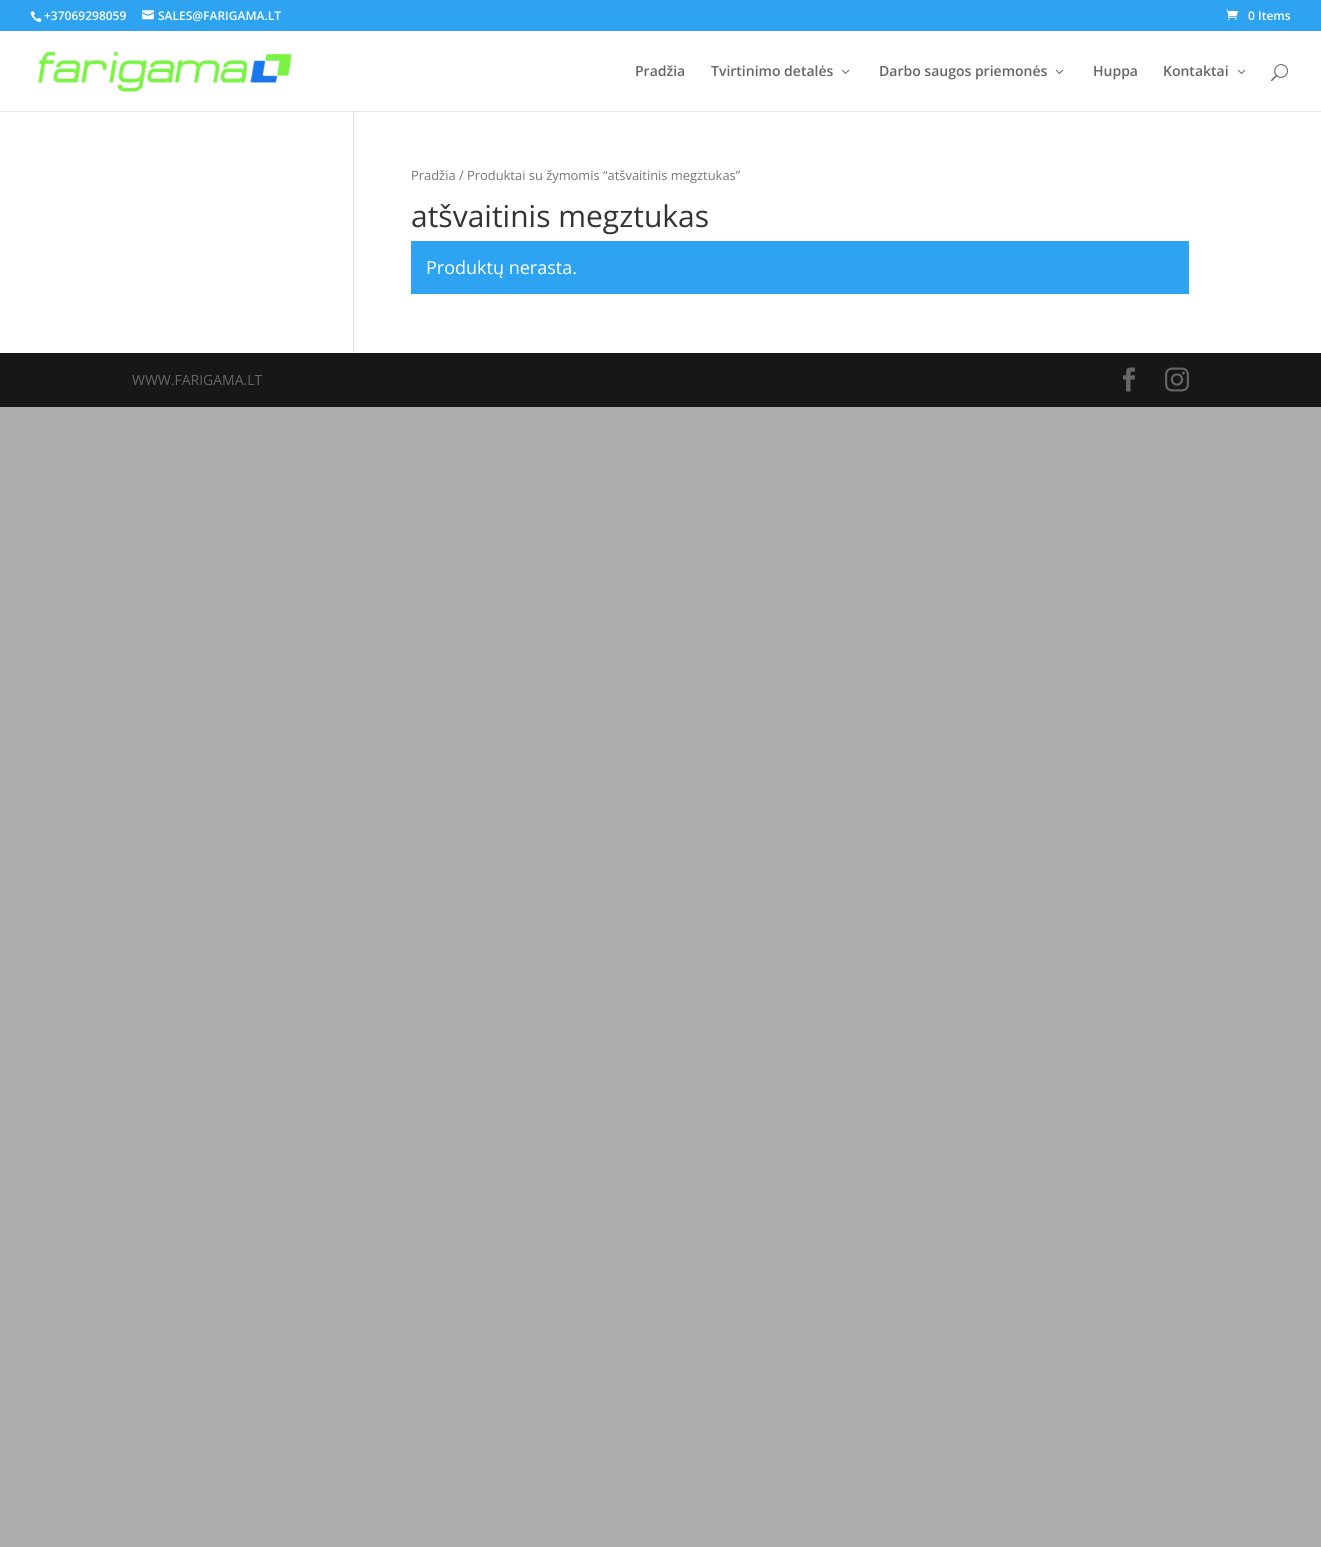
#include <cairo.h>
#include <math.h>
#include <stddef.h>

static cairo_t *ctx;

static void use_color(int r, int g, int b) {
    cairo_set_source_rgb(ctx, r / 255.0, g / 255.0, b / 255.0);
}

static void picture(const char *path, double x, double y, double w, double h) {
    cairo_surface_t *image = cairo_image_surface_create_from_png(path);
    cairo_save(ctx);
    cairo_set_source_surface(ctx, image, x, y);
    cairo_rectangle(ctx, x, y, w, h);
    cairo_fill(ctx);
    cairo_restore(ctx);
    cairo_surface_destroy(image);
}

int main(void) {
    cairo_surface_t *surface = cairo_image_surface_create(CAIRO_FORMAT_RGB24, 1321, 1547);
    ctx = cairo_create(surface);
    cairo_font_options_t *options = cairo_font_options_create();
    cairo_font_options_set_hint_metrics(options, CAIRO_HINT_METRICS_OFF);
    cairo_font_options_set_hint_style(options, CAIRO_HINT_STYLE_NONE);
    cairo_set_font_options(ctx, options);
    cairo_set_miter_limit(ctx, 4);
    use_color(173, 173, 173);
    cairo_paint(ctx);
    use_color(46, 163, 242);
    cairo_rectangle(ctx, 0, 0, 1321, 31);
    cairo_fill(ctx);
    picture("img1.png", 30, 11, 12, 12);
    cairo_select_font_face(ctx, "Open Sans SemiBold", CAIRO_FONT_SLANT_NORMAL, CAIRO_FONT_WEIGHT_NORMAL);
    cairo_set_font_size(ctx, 12);
    use_color(255, 255, 255);
    cairo_move_to(ctx, 44, 20);
    cairo_show_text(ctx, "+37069298059");
    picture("img2.png", 142, 10, 12, 10);
    cairo_move_to(ctx, 158, 20);
    cairo_show_text(ctx, "SALES@FARIGAMA.LT");
    picture("img3.png", 1226, 9, 12, 11);
    cairo_move_to(ctx, 1248, 20);
    cairo_show_text(ctx, "0 Items");
    cairo_rectangle(ctx, 0, 112, 1321, 241);
    cairo_fill(ctx);
    use_color(230, 230, 230);
    cairo_rectangle(ctx, 0, 111, 1321, 1);
    cairo_fill(ctx);
    use_color(226, 226, 226);
    cairo_rectangle(ctx, 353, 106, 1, 247);
    cairo_fill(ctx);
    use_color(255, 255, 255);
    cairo_rectangle(ctx, 0, 31, 1321, 80);
    cairo_fill(ctx);
    picture("img4.png", 38, 51, 254, 41);
    cairo_set_font_size(ctx, 14);
    use_color(102, 102, 102);
    cairo_move_to(ctx, 635, 76);
    cairo_show_text(ctx, "Pradžia");
    cairo_move_to(ctx, 711, 76);
    cairo_show_text(ctx, "Tvirtinimo detalės");
    picture("img5.png", 841, 69, 9, 5);
    cairo_move_to(ctx, 879, 76);
    cairo_show_text(ctx, "Darbo saugos priemonės");
    picture("img5.png", 1055, 69, 9, 5);
    cairo_move_to(ctx, 1093, 76);
    cairo_show_text(ctx, "Huppa");
    cairo_move_to(ctx, 1163, 76);
    cairo_show_text(ctx, "Kontaktai");
    picture("img5.png", 1237, 69, 9, 5);
    picture("img6.png", 1271, 64, 17, 18);
    use_color(203, 203, 203);
    cairo_rectangle(ctx, 353, 111, 1, 1);
    cairo_fill(ctx);
    cairo_select_font_face(ctx, "Open Sans", CAIRO_FONT_SLANT_NORMAL, CAIRO_FONT_WEIGHT_NORMAL);
    cairo_set_font_size(ctx, 12.9);
    use_color(118, 118, 118);
    cairo_move_to(ctx, 411, 180);
    cairo_show_text(ctx, "Pradžia / Produktai su žymomis “atšvaitinis megztukas”");
    cairo_set_font_size(ctx, 30);
    use_color(51, 51, 51);
    cairo_move_to(ctx, 411, 227);
    cairo_show_text(ctx, "atšvaitinis megztukas");
    use_color(46, 163, 242);
    cairo_rectangle(ctx, 411, 241, 778, 53);
    cairo_fill(ctx);
    cairo_set_font_size(ctx, 18);
    use_color(255, 255, 255);
    cairo_move_to(ctx, 426, 274);
    cairo_show_text(ctx, "Produktų nerasta.");
    use_color(23, 23, 23);
    cairo_rectangle(ctx, 0, 353, 1321, 54);
    cairo_fill(ctx);
    cairo_set_font_size(ctx, 14);
    use_color(102, 102, 102);
    cairo_move_to(ctx, 132, 385);
    cairo_show_text(ctx, "WWW.FARIGAMA.LT");
    picture("img7.png", 1123, 367, 12, 25);
    picture("img8.png", 1165, 367, 24, 25);
    cairo_surface_write_to_png(surface, "result.png");
    cairo_font_options_destroy(options);
    cairo_destroy(ctx);
    cairo_surface_destroy(surface);
    return 0;
}
